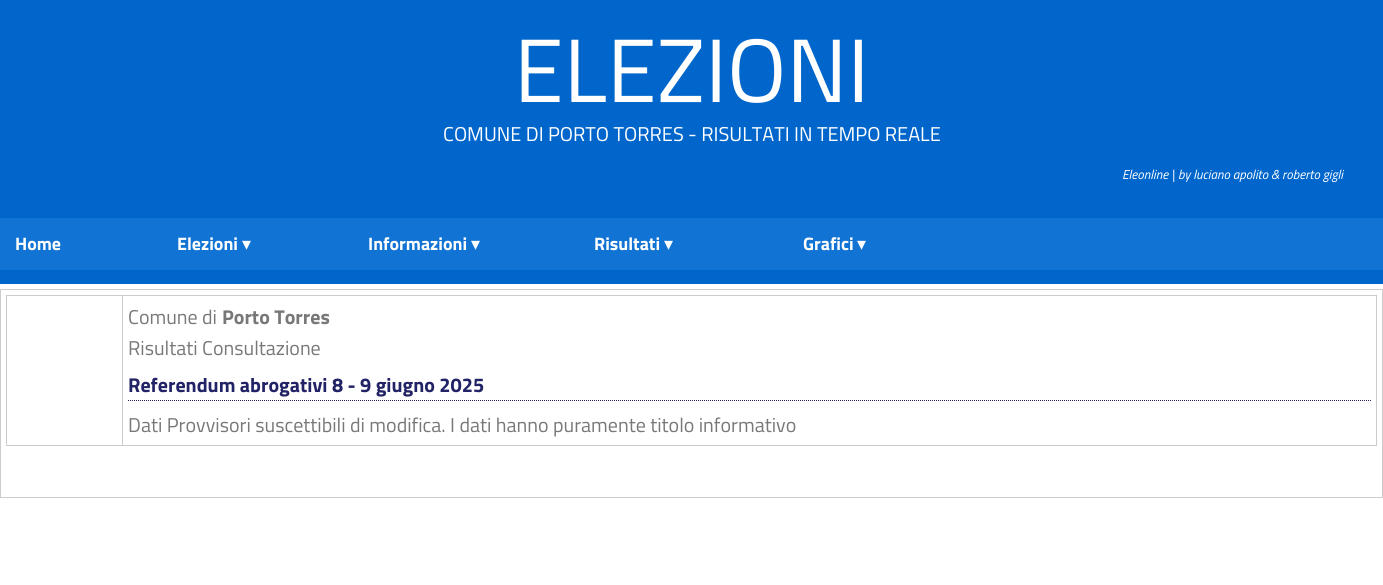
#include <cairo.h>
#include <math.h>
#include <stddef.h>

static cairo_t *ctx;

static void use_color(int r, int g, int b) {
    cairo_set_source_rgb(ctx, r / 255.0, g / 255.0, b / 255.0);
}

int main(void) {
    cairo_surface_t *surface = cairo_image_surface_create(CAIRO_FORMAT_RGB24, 1383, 585);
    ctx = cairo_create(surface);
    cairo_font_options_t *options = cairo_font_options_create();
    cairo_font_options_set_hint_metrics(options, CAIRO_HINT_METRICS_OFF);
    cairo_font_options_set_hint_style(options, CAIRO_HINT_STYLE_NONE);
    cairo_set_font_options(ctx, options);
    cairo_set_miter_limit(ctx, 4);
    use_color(255, 255, 255);
    cairo_paint(ctx);
    use_color(0, 102, 203);
    cairo_rectangle(ctx, 0, 0, 1383, 284);
    cairo_fill(ctx);
    cairo_select_font_face(ctx, "Titillium Web", CAIRO_FONT_SLANT_NORMAL, CAIRO_FONT_WEIGHT_NORMAL);
    cairo_set_font_size(ctx, 90);
    use_color(255, 255, 255);
    cairo_move_to(ctx, 514, 102);
    cairo_show_text(ctx, "ELEZIONI");
    cairo_set_font_size(ctx, 20);
    cairo_move_to(ctx, 443, 141);
    cairo_show_text(ctx, "COMUNE DI PORTO TORRES - RISULTATI IN TEMPO REALE");
    cairo_select_font_face(ctx, "Titillium Web", CAIRO_FONT_SLANT_ITALIC, CAIRO_FONT_WEIGHT_NORMAL);
    cairo_set_font_size(ctx, 13);
    cairo_move_to(ctx, 1122, 179);
    cairo_show_text(ctx, "Eleonline | by luciano apolito & roberto gigli");
    use_color(17, 115, 212);
    cairo_rectangle(ctx, 0, 218, 1383, 52);
    cairo_fill(ctx);
    cairo_select_font_face(ctx, "Titillium Web", CAIRO_FONT_SLANT_NORMAL, CAIRO_FONT_WEIGHT_BOLD);
    cairo_set_font_size(ctx, 18);
    use_color(255, 255, 255);
    cairo_move_to(ctx, 15, 250);
    cairo_show_text(ctx, "Home");
    cairo_move_to(ctx, 177, 250);
    cairo_show_text(ctx, "Elezioni");
    cairo_select_font_face(ctx, "DejaVu Sans", CAIRO_FONT_SLANT_NORMAL, CAIRO_FONT_WEIGHT_NORMAL);
    cairo_move_to(ctx, 242, 250);
    cairo_show_text(ctx, "▾");
    cairo_select_font_face(ctx, "Titillium Web", CAIRO_FONT_SLANT_NORMAL, CAIRO_FONT_WEIGHT_BOLD);
    cairo_move_to(ctx, 368, 250);
    cairo_show_text(ctx, "Informazioni");
    cairo_select_font_face(ctx, "DejaVu Sans", CAIRO_FONT_SLANT_NORMAL, CAIRO_FONT_WEIGHT_NORMAL);
    cairo_move_to(ctx, 471, 250);
    cairo_show_text(ctx, "▾");
    cairo_select_font_face(ctx, "Titillium Web", CAIRO_FONT_SLANT_NORMAL, CAIRO_FONT_WEIGHT_BOLD);
    cairo_move_to(ctx, 594, 250);
    cairo_show_text(ctx, "Risultati");
    cairo_select_font_face(ctx, "DejaVu Sans", CAIRO_FONT_SLANT_NORMAL, CAIRO_FONT_WEIGHT_NORMAL);
    cairo_move_to(ctx, 664, 250);
    cairo_show_text(ctx, "▾");
    cairo_select_font_face(ctx, "Titillium Web", CAIRO_FONT_SLANT_NORMAL, CAIRO_FONT_WEIGHT_BOLD);
    cairo_move_to(ctx, 803, 250);
    cairo_show_text(ctx, "Grafici");
    cairo_select_font_face(ctx, "DejaVu Sans", CAIRO_FONT_SLANT_NORMAL, CAIRO_FONT_WEIGHT_NORMAL);
    cairo_move_to(ctx, 857, 250);
    cairo_show_text(ctx, "▾");
    use_color(204, 204, 204);
    cairo_rectangle(ctx, 0, 289, 1383, 1);
    cairo_fill(ctx);
    cairo_rectangle(ctx, 1382, 289, 1, 209);
    cairo_fill(ctx);
    cairo_rectangle(ctx, 0, 497, 1383, 1);
    cairo_fill(ctx);
    cairo_rectangle(ctx, 0, 289, 1, 209);
    cairo_fill(ctx);
    cairo_rectangle(ctx, 6, 295, 1371, 1);
    cairo_fill(ctx);
    cairo_rectangle(ctx, 1376, 295, 1, 151);
    cairo_fill(ctx);
    cairo_rectangle(ctx, 6, 445, 1371, 1);
    cairo_fill(ctx);
    cairo_rectangle(ctx, 6, 295, 1, 151);
    cairo_fill(ctx);
    cairo_rectangle(ctx, 122, 295, 1, 151);
    cairo_fill(ctx);
    cairo_select_font_face(ctx, "Titillium Web", CAIRO_FONT_SLANT_NORMAL, CAIRO_FONT_WEIGHT_NORMAL);
    cairo_set_font_size(ctx, 20);
    use_color(120, 120, 120);
    cairo_move_to(ctx, 128, 324);
    cairo_show_text(ctx, "Comune di");
    cairo_select_font_face(ctx, "Titillium Web", CAIRO_FONT_SLANT_NORMAL, CAIRO_FONT_WEIGHT_BOLD);
    cairo_move_to(ctx, 222, 324);
    cairo_show_text(ctx, "Porto Torres");
    cairo_select_font_face(ctx, "Titillium Web", CAIRO_FONT_SLANT_NORMAL, CAIRO_FONT_WEIGHT_NORMAL);
    cairo_move_to(ctx, 128, 355);
    cairo_show_text(ctx, "Risultati Consultazione");
    cairo_new_path(ctx);
    cairo_move_to(ctx, 128, 400.5);
    cairo_line_to(ctx, 1371, 400.5);
    use_color(34, 34, 102);
    cairo_set_line_width(ctx, 1);
    cairo_set_dash(ctx, (double[]){1, 1}, 2, 0);
    cairo_stroke(ctx);
    cairo_select_font_face(ctx, "Titillium Web", CAIRO_FONT_SLANT_NORMAL, CAIRO_FONT_WEIGHT_BOLD);
    cairo_move_to(ctx, 128, 392);
    cairo_show_text(ctx, "Referendum abrogativi 8 - 9 giugno 2025");
    cairo_select_font_face(ctx, "Titillium Web", CAIRO_FONT_SLANT_NORMAL, CAIRO_FONT_WEIGHT_NORMAL);
    use_color(120, 120, 120);
    cairo_move_to(ctx, 128, 432);
    cairo_show_text(ctx, "Dati Provvisori suscettibili di modifica. I dati hanno puramente titolo informativo");
    cairo_surface_write_to_png(surface, "result.png");
    cairo_font_options_destroy(options);
    cairo_destroy(ctx);
    cairo_surface_destroy(surface);
    return 0;
}
